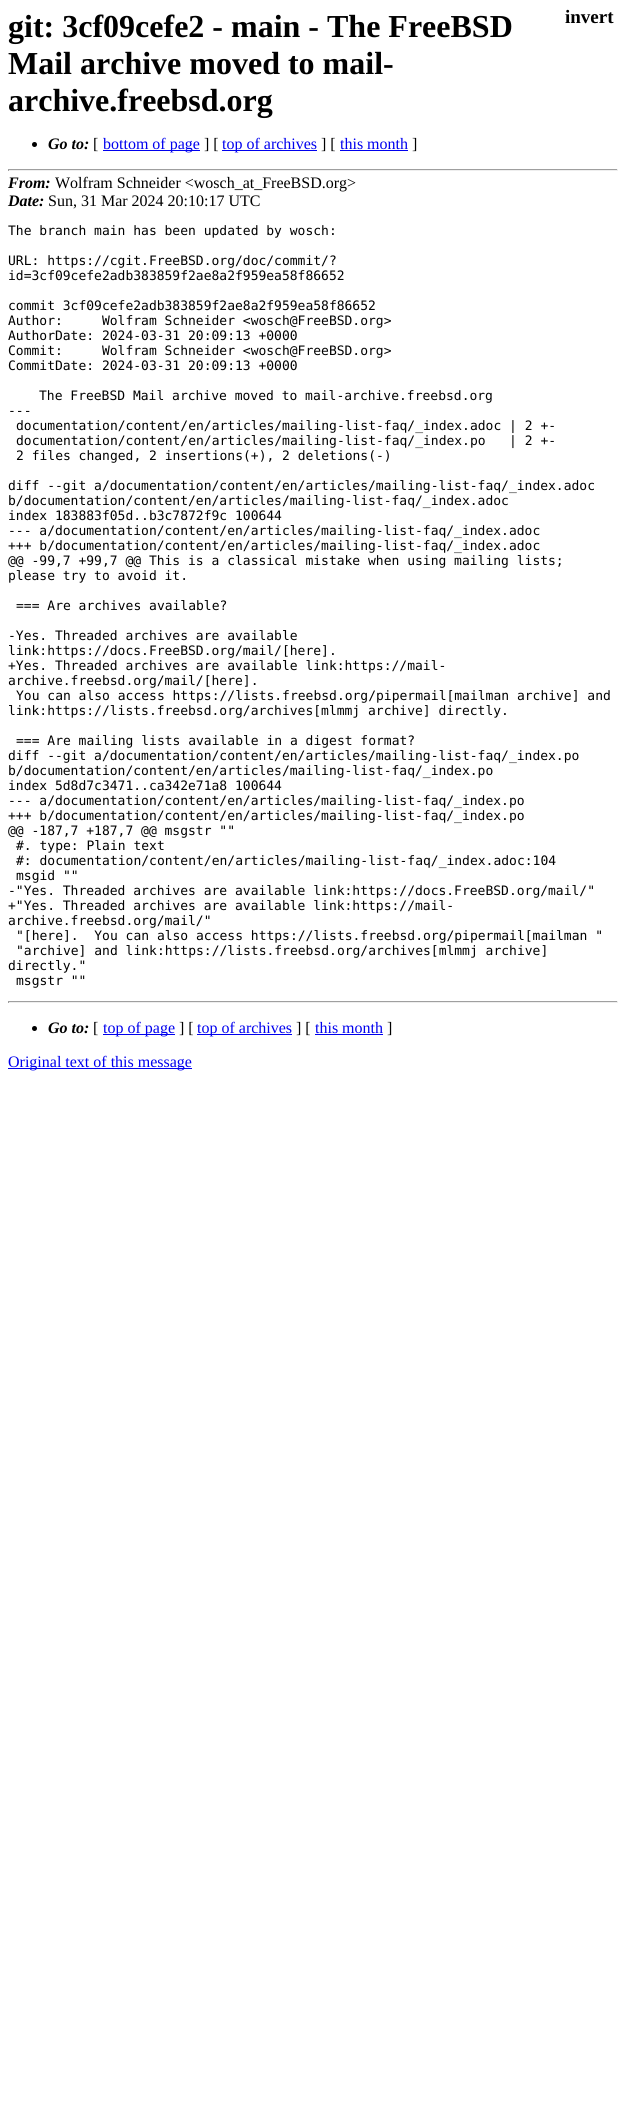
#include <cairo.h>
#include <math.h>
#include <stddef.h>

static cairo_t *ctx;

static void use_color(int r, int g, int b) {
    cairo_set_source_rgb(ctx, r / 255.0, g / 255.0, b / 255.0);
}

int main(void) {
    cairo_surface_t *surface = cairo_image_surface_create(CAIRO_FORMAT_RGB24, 626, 2124);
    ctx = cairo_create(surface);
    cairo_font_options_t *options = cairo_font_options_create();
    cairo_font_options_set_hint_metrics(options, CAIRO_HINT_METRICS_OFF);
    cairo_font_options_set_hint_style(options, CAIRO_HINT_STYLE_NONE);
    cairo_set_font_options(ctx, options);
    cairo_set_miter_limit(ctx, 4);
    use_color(255, 255, 255);
    cairo_paint(ctx);
    cairo_select_font_face(ctx, "Liberation Serif", CAIRO_FONT_SLANT_NORMAL, CAIRO_FONT_WEIGHT_BOLD);
    cairo_set_font_size(ctx, 32);
    use_color(0, 0, 0);
    cairo_move_to(ctx, 8, 37);
    cairo_show_text(ctx, "git: 3cf09cefe2 - main - The FreeBSD");
    cairo_move_to(ctx, 8, 74);
    cairo_show_text(ctx, "Mail archive moved to mail-");
    cairo_move_to(ctx, 8, 111);
    cairo_show_text(ctx, "archive.freebsd.org");
    cairo_new_path(ctx);
    cairo_arc(ctx, 34.5, 144.5, 2.5, 0, 2 * M_PI);
    cairo_fill(ctx);
    cairo_select_font_face(ctx, "Liberation Serif", CAIRO_FONT_SLANT_ITALIC, CAIRO_FONT_WEIGHT_BOLD);
    cairo_set_font_size(ctx, 16);
    cairo_move_to(ctx, 48, 149);
    cairo_show_text(ctx, "Go to:");
    cairo_select_font_face(ctx, "Liberation Serif", CAIRO_FONT_SLANT_NORMAL, CAIRO_FONT_WEIGHT_NORMAL);
    cairo_move_to(ctx, 93, 149);
    cairo_show_text(ctx, "[");
    use_color(0, 0, 238);
    cairo_rectangle(ctx, 103, 150, 97, 1);
    cairo_fill(ctx);
    cairo_move_to(ctx, 103, 149);
    cairo_show_text(ctx, "bottom of page");
    use_color(0, 0, 0);
    cairo_move_to(ctx, 204, 149);
    cairo_show_text(ctx, "] [");
    use_color(0, 0, 238);
    cairo_rectangle(ctx, 222, 150, 95, 1);
    cairo_fill(ctx);
    cairo_move_to(ctx, 222, 149);
    cairo_show_text(ctx, "top of archives");
    use_color(0, 0, 0);
    cairo_move_to(ctx, 321, 149);
    cairo_show_text(ctx, "] [");
    use_color(0, 0, 238);
    cairo_move_to(ctx, 340, 149);
    cairo_show_text(ctx, "this month");
    cairo_rectangle(ctx, 340, 150, 68, 1);
    cairo_fill(ctx);
    use_color(0, 0, 0);
    cairo_move_to(ctx, 412, 149);
    cairo_show_text(ctx, "]");
    use_color(159, 159, 159);
    cairo_rectangle(ctx, 8, 169, 610, 1);
    cairo_fill(ctx);
    use_color(238, 238, 238);
    cairo_rectangle(ctx, 617, 169, 1, 2);
    cairo_fill(ctx);
    cairo_rectangle(ctx, 8, 170, 610, 1);
    cairo_fill(ctx);
    use_color(159, 159, 159);
    cairo_rectangle(ctx, 8, 169, 1, 2);
    cairo_fill(ctx);
    cairo_select_font_face(ctx, "Liberation Serif", CAIRO_FONT_SLANT_NORMAL, CAIRO_FONT_WEIGHT_BOLD);
    cairo_set_font_size(ctx, 19);
    use_color(0, 0, 0);
    cairo_move_to(ctx, 565, 23);
    cairo_show_text(ctx, "invert");
    cairo_select_font_face(ctx, "Liberation Serif", CAIRO_FONT_SLANT_ITALIC, CAIRO_FONT_WEIGHT_BOLD);
    cairo_set_font_size(ctx, 16);
    cairo_move_to(ctx, 8, 188);
    cairo_show_text(ctx, "From:");
    cairo_select_font_face(ctx, "Liberation Serif", CAIRO_FONT_SLANT_NORMAL, CAIRO_FONT_WEIGHT_NORMAL);
    cairo_move_to(ctx, 55, 188);
    cairo_show_text(ctx, "Wolfram Schneider <wosch_at_FreeBSD.org>");
    cairo_select_font_face(ctx, "Liberation Serif", CAIRO_FONT_SLANT_ITALIC, CAIRO_FONT_WEIGHT_BOLD);
    cairo_move_to(ctx, 8, 206);
    cairo_show_text(ctx, "Date:");
    cairo_select_font_face(ctx, "Liberation Serif", CAIRO_FONT_SLANT_NORMAL, CAIRO_FONT_WEIGHT_NORMAL);
    cairo_move_to(ctx, 48, 206);
    cairo_show_text(ctx, "Sun, 31 Mar 2024 20:10:17 UTC");
    cairo_select_font_face(ctx, "DejaVu Sans Mono", CAIRO_FONT_SLANT_NORMAL, CAIRO_FONT_WEIGHT_NORMAL);
    cairo_set_font_size(ctx, 13);
    cairo_move_to(ctx, 8, 235);
    cairo_show_text(ctx, "The branch main has been updated by wosch:");
    cairo_move_to(ctx, 8, 265);
    cairo_show_text(ctx, "URL: https://cgit.FreeBSD.org/doc/commit/?");
    cairo_move_to(ctx, 8, 280);
    cairo_show_text(ctx, "id=3cf09cefe2adb383859f2ae8a2f959ea58f86652");
    cairo_move_to(ctx, 8, 310);
    cairo_show_text(ctx, "commit 3cf09cefe2adb383859f2ae8a2f959ea58f86652");
    cairo_move_to(ctx, 8, 325);
    cairo_show_text(ctx, "Author:     Wolfram Schneider <wosch@FreeBSD.org>");
    cairo_move_to(ctx, 8, 340);
    cairo_show_text(ctx, "AuthorDate: 2024-03-31 20:09:13 +0000");
    cairo_move_to(ctx, 8, 355);
    cairo_show_text(ctx, "Commit:     Wolfram Schneider <wosch@FreeBSD.org>");
    cairo_move_to(ctx, 8, 370);
    cairo_show_text(ctx, "CommitDate: 2024-03-31 20:09:13 +0000");
    cairo_move_to(ctx, 39, 400);
    cairo_show_text(ctx, "The FreeBSD Mail archive moved to mail-archive.freebsd.org");
    cairo_move_to(ctx, 8, 415);
    cairo_show_text(ctx, "---");
    cairo_move_to(ctx, 16, 430);
    cairo_show_text(ctx, "documentation/content/en/articles/mailing-list-faq/_index.adoc | 2 +-");
    cairo_move_to(ctx, 16, 445);
    cairo_show_text(ctx, "documentation/content/en/articles/mailing-list-faq/_index.po   | 2 +-");
    cairo_move_to(ctx, 16, 460);
    cairo_show_text(ctx, "2 files changed, 2 insertions(+), 2 deletions(-)");
    cairo_move_to(ctx, 8, 490);
    cairo_show_text(ctx, "diff --git a/documentation/content/en/articles/mailing-list-faq/_index.adoc");
    cairo_move_to(ctx, 8, 505);
    cairo_show_text(ctx, "b/documentation/content/en/articles/mailing-list-faq/_index.adoc");
    cairo_move_to(ctx, 8, 520);
    cairo_show_text(ctx, "index 183883f05d..b3c7872f9c 100644");
    cairo_move_to(ctx, 8, 535);
    cairo_show_text(ctx, "--- a/documentation/content/en/articles/mailing-list-faq/_index.adoc");
    cairo_move_to(ctx, 8, 550);
    cairo_show_text(ctx, "+++ b/documentation/content/en/articles/mailing-list-faq/_index.adoc");
    cairo_move_to(ctx, 8, 565);
    cairo_show_text(ctx, "@@ -99,7 +99,7 @@ This is a classical mistake when using mailing lists;");
    cairo_move_to(ctx, 8, 580);
    cairo_show_text(ctx, "please try to avoid it.");
    cairo_move_to(ctx, 16, 610);
    cairo_show_text(ctx, "=== Are archives available?");
    cairo_move_to(ctx, 8, 640);
    cairo_show_text(ctx, "-Yes. Threaded archives are available");
    cairo_move_to(ctx, 8, 655);
    cairo_show_text(ctx, "link:https://docs.FreeBSD.org/mail/[here].");
    cairo_move_to(ctx, 8, 670);
    cairo_show_text(ctx, "+Yes. Threaded archives are available link:https://mail-");
    cairo_move_to(ctx, 8, 685);
    cairo_show_text(ctx, "archive.freebsd.org/mail/[here].");
    cairo_move_to(ctx, 16, 700);
    cairo_show_text(ctx, "You can also access https://lists.freebsd.org/pipermail[mailman archive] and");
    cairo_move_to(ctx, 8, 715);
    cairo_show_text(ctx, "link:https://lists.freebsd.org/archives[mlmmj archive] directly.");
    cairo_move_to(ctx, 16, 745);
    cairo_show_text(ctx, "=== Are mailing lists available in a digest format?");
    cairo_move_to(ctx, 8, 760);
    cairo_show_text(ctx, "diff --git a/documentation/content/en/articles/mailing-list-faq/_index.po");
    cairo_move_to(ctx, 8, 775);
    cairo_show_text(ctx, "b/documentation/content/en/articles/mailing-list-faq/_index.po");
    cairo_move_to(ctx, 8, 790);
    cairo_show_text(ctx, "index 5d8d7c3471..ca342e71a8 100644");
    cairo_move_to(ctx, 8, 805);
    cairo_show_text(ctx, "--- a/documentation/content/en/articles/mailing-list-faq/_index.po");
    cairo_move_to(ctx, 8, 820);
    cairo_show_text(ctx, "+++ b/documentation/content/en/articles/mailing-list-faq/_index.po");
    cairo_move_to(ctx, 8, 835);
    cairo_show_text(ctx, "@@ -187,7 +187,7 @@ msgstr \"\"");
    cairo_move_to(ctx, 16, 850);
    cairo_show_text(ctx, "#. type: Plain text");
    cairo_move_to(ctx, 16, 865);
    cairo_show_text(ctx, "#: documentation/content/en/articles/mailing-list-faq/_index.adoc:104");
    cairo_move_to(ctx, 16, 880);
    cairo_show_text(ctx, "msgid \"\"");
    cairo_move_to(ctx, 8, 895);
    cairo_show_text(ctx, "-\"Yes. Threaded archives are available link:https://docs.FreeBSD.org/mail/\"");
    cairo_move_to(ctx, 8, 910);
    cairo_show_text(ctx, "+\"Yes. Threaded archives are available link:https://mail-");
    cairo_move_to(ctx, 8, 925);
    cairo_show_text(ctx, "archive.freebsd.org/mail/\"");
    cairo_move_to(ctx, 16, 940);
    cairo_show_text(ctx, "\"[here].  You can also access https://lists.freebsd.org/pipermail[mailman \"");
    cairo_move_to(ctx, 16, 955);
    cairo_show_text(ctx, "\"archive] and link:https://lists.freebsd.org/archives[mlmmj archive]");
    cairo_move_to(ctx, 8, 970);
    cairo_show_text(ctx, "directly.\"");
    cairo_move_to(ctx, 16, 985);
    cairo_show_text(ctx, "msgstr \"\"");
    use_color(159, 159, 159);
    cairo_rectangle(ctx, 8, 1001, 610, 1);
    cairo_fill(ctx);
    use_color(238, 238, 238);
    cairo_rectangle(ctx, 617, 1001, 1, 2);
    cairo_fill(ctx);
    cairo_rectangle(ctx, 8, 1002, 610, 1);
    cairo_fill(ctx);
    use_color(159, 159, 159);
    cairo_rectangle(ctx, 8, 1001, 1, 2);
    cairo_fill(ctx);
    use_color(0, 0, 0);
    cairo_arc(ctx, 34.5, 1028.5, 2.5, 0, 2 * M_PI);
    cairo_fill(ctx);
    cairo_select_font_face(ctx, "Liberation Serif", CAIRO_FONT_SLANT_ITALIC, CAIRO_FONT_WEIGHT_BOLD);
    cairo_set_font_size(ctx, 16);
    cairo_move_to(ctx, 48, 1033);
    cairo_show_text(ctx, "Go to:");
    cairo_select_font_face(ctx, "Liberation Serif", CAIRO_FONT_SLANT_NORMAL, CAIRO_FONT_WEIGHT_NORMAL);
    cairo_move_to(ctx, 93, 1033);
    cairo_show_text(ctx, "[");
    use_color(0, 0, 238);
    cairo_rectangle(ctx, 103, 1034, 72, 1);
    cairo_fill(ctx);
    cairo_move_to(ctx, 103, 1033);
    cairo_show_text(ctx, "top of page");
    use_color(0, 0, 0);
    cairo_move_to(ctx, 179, 1033);
    cairo_show_text(ctx, "] [");
    use_color(0, 0, 238);
    cairo_rectangle(ctx, 197, 1034, 95, 1);
    cairo_fill(ctx);
    cairo_move_to(ctx, 197, 1033);
    cairo_show_text(ctx, "top of archives");
    use_color(0, 0, 0);
    cairo_move_to(ctx, 296, 1033);
    cairo_show_text(ctx, "] [");
    use_color(0, 0, 238);
    cairo_move_to(ctx, 315, 1033);
    cairo_show_text(ctx, "this month");
    cairo_rectangle(ctx, 315, 1034, 68, 1);
    cairo_fill(ctx);
    use_color(0, 0, 0);
    cairo_move_to(ctx, 387, 1033);
    cairo_show_text(ctx, "]");
    use_color(0, 0, 238);
    cairo_rectangle(ctx, 8, 1068, 184, 1);
    cairo_fill(ctx);
    cairo_move_to(ctx, 8, 1067);
    cairo_show_text(ctx, "Original text of this message");
    cairo_surface_write_to_png(surface, "result.png");
    cairo_font_options_destroy(options);
    cairo_destroy(ctx);
    cairo_surface_destroy(surface);
    return 0;
}
